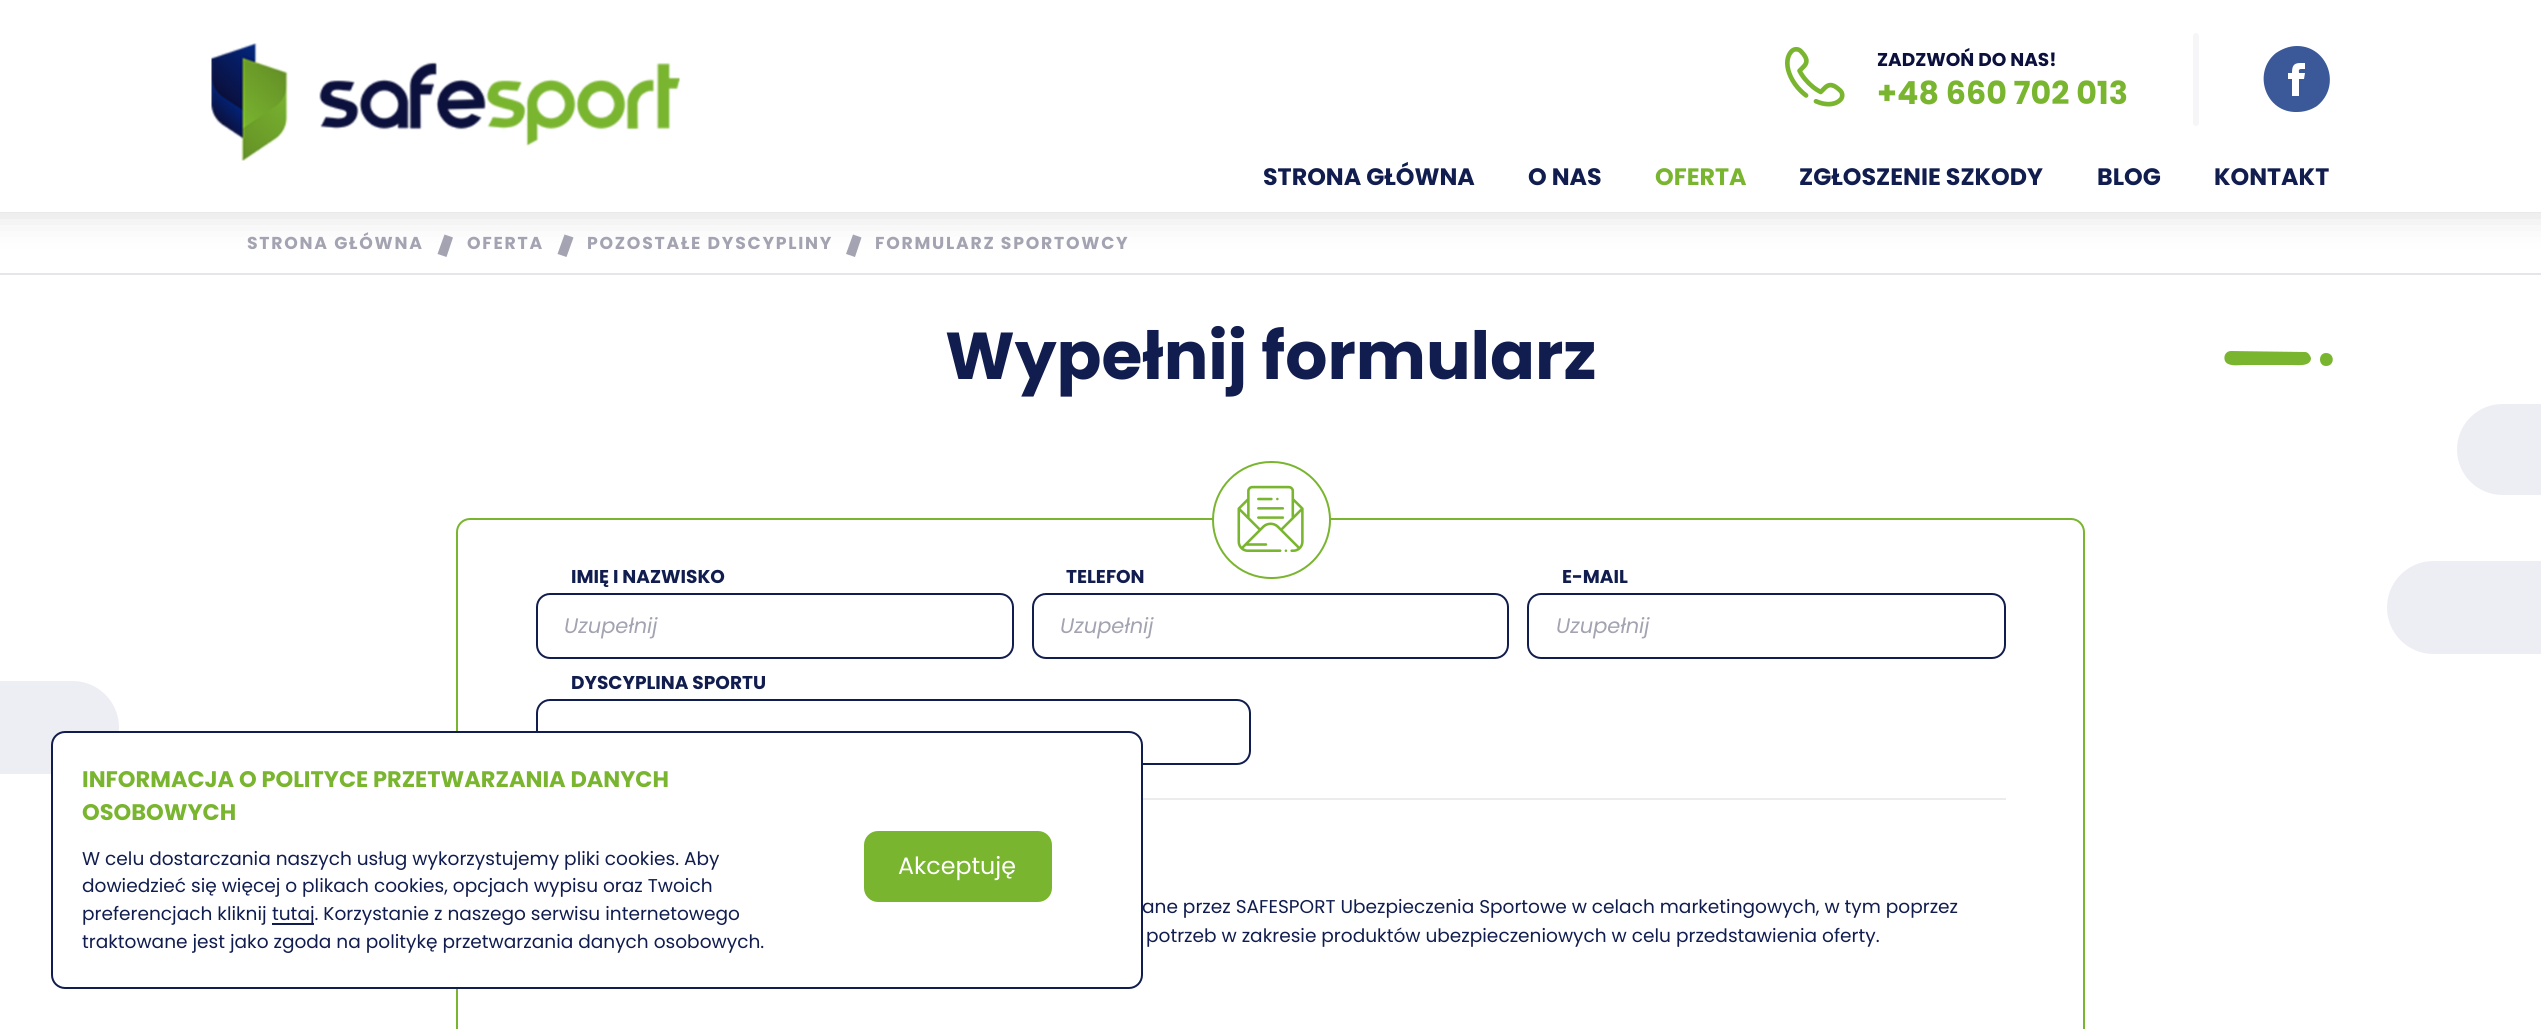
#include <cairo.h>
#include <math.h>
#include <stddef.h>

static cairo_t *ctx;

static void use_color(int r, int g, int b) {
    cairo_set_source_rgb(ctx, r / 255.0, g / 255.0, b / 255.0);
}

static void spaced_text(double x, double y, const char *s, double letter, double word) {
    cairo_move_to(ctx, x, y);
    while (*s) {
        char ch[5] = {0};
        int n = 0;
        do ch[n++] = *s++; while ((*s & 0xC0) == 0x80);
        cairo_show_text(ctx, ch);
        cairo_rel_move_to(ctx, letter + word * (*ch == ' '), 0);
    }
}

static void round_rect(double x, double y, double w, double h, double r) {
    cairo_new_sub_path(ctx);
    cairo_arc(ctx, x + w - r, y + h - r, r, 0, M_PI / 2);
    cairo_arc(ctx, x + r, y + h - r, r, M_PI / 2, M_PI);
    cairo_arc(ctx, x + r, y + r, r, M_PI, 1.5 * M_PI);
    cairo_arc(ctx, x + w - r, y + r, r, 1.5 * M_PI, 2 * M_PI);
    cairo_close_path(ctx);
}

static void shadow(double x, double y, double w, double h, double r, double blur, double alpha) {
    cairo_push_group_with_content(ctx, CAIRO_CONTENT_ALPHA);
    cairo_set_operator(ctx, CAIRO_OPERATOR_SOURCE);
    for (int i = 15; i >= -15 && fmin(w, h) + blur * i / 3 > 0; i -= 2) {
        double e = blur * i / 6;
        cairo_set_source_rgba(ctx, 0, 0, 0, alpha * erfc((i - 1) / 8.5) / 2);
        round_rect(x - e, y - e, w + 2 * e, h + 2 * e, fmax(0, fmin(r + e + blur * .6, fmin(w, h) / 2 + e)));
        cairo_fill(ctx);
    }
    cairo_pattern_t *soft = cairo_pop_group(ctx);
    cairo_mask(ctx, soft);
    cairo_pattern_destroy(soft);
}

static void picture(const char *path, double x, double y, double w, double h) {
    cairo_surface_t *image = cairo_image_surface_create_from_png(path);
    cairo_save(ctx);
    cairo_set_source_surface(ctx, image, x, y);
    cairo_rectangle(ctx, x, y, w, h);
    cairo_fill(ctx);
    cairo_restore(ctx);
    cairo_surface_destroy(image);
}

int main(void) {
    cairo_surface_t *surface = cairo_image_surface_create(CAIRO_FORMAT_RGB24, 2541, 1029);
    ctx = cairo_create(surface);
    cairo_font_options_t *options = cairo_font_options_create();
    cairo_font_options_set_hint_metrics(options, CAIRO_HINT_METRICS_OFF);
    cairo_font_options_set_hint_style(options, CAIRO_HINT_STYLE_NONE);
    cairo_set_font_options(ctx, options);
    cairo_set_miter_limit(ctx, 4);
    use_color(255, 255, 255);
    cairo_paint(ctx);
    use_color(163, 163, 178);
    cairo_new_path(ctx);
    cairo_move_to(ctx, 444.5, 234.5);
    cairo_line_to(ctx, 453, 237.5);
    cairo_line_to(ctx, 446.5, 257);
    cairo_line_to(ctx, 437.5, 254);
    cairo_close_path(ctx);
    cairo_fill(ctx);
    cairo_new_path(ctx);
    cairo_move_to(ctx, 564.5, 234.5);
    cairo_line_to(ctx, 573.5, 237.5);
    cairo_line_to(ctx, 566.5, 257);
    cairo_line_to(ctx, 557.5, 254);
    cairo_close_path(ctx);
    cairo_fill(ctx);
    cairo_new_path(ctx);
    cairo_move_to(ctx, 853, 234.5);
    cairo_line_to(ctx, 861.5, 237.5);
    cairo_line_to(ctx, 855, 257);
    cairo_line_to(ctx, 846, 254);
    cairo_close_path(ctx);
    cairo_fill(ctx);
    use_color(191, 191, 191);
    shadow(-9, -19, 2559, 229, 0, 18, 0.69);
    use_color(255, 255, 255);
    cairo_rectangle(ctx, 0, 0, 2541, 212);
    cairo_fill(ctx);
    picture("img1.png", 1785, 46, 60, 61);
    cairo_select_font_face(ctx, "Poppins", CAIRO_FONT_SLANT_NORMAL, CAIRO_FONT_WEIGHT_BOLD);
    cairo_set_font_size(ctx, 18.55);
    use_color(11, 16, 60);
    cairo_move_to(ctx, 1877, 66);
    cairo_show_text(ctx, "ZADZWOŃ DO NAS!");
    cairo_set_font_size(ctx, 31.75);
    use_color(122, 181, 48);
    cairo_move_to(ctx, 1877, 104);
    cairo_show_text(ctx, "+48 660 702 013");
    use_color(246, 246, 249);
    round_rect(2193, 33, 6, 93, 3);
    cairo_fill(ctx);
    use_color(59, 89, 152);
    cairo_new_path(ctx);
    cairo_move_to(ctx, 2297, 46);
    cairo_curve_to(ctx, 2328, 46, 2342, 86, 2317, 106);
    cairo_curve_to(ctx, 2311, 110, 2304, 112, 2297, 112);
    cairo_curve_to(ctx, 2265, 113, 2252, 72, 2276, 53);
    cairo_curve_to(ctx, 2282, 49, 2289, 46, 2297, 46);
    cairo_close_path(ctx);
    cairo_move_to(ctx, 2301, 69);
    cairo_line_to(ctx, 2305, 69);
    cairo_line_to(ctx, 2305, 63);
    cairo_line_to(ctx, 2300, 63);
    cairo_curve_to(ctx, 2293, 63, 2292, 67, 2292, 73);
    cairo_line_to(ctx, 2288, 73);
    cairo_line_to(ctx, 2288, 79);
    cairo_line_to(ctx, 2292, 79);
    cairo_line_to(ctx, 2292, 96);
    cairo_line_to(ctx, 2299, 96);
    cairo_line_to(ctx, 2299, 79);
    cairo_line_to(ctx, 2304, 79);
    cairo_line_to(ctx, 2305, 73);
    cairo_line_to(ctx, 2299, 73);
    cairo_curve_to(ctx, 2299, 72, 2298, 69, 2301, 69);
    cairo_close_path(ctx);
    cairo_fill(ctx);
    picture("img2.png", 211, 43, 469, 118);
    cairo_set_font_size(ctx, 23.75);
    use_color(17, 29, 78);
    cairo_move_to(ctx, 1263, 185);
    cairo_show_text(ctx, "STRONA GŁÓWNA");
    cairo_move_to(ctx, 1528, 185);
    cairo_show_text(ctx, "O NAS");
    use_color(122, 181, 48);
    cairo_move_to(ctx, 1655, 185);
    cairo_show_text(ctx, "OFERTA");
    use_color(17, 29, 78);
    cairo_move_to(ctx, 1799, 185);
    cairo_show_text(ctx, "ZGŁOSZENIE SZKODY");
    cairo_move_to(ctx, 2097, 185);
    cairo_show_text(ctx, "BLOG");
    cairo_move_to(ctx, 2214, 185);
    cairo_show_text(ctx, "KONTAKT");
    use_color(230, 230, 234);
    cairo_rectangle(ctx, 0, 273, 2541, 2);
    cairo_fill(ctx);
    cairo_set_font_size(ctx, 17.25);
    use_color(163, 163, 178);
    spaced_text(247, 249, "STRONA GŁÓWNA", 1.75, 0);
    spaced_text(467, 249, "OFERTA", 1.75, 0);
    spaced_text(587, 249, "POZOSTAŁE DYSCYPLINY", 1.75, 0);
    spaced_text(875, 249, "FORMULARZ SPORTOWCY", 1.75, 0);
    cairo_set_font_size(ctx, 66.25);
    use_color(17, 29, 78);
    cairo_move_to(ctx, 945, 379);
    cairo_show_text(ctx, "Wypełnij formularz");
    use_color(122, 181, 48);
    cairo_new_path(ctx);
    cairo_move_to(ctx, 2231, 351);
    cairo_line_to(ctx, 2305, 352);
    cairo_curve_to(ctx, 2308, 352, 2310, 355, 2311, 358);
    cairo_curve_to(ctx, 2311, 367, 2297, 365, 2292, 365);
    cairo_line_to(ctx, 2243, 365);
    cairo_curve_to(ctx, 2239, 365, 2228, 367, 2225, 361);
    cairo_curve_to(ctx, 2223, 356, 2226, 351, 2231, 351);
    cairo_close_path(ctx);
    cairo_move_to(ctx, 2326, 353);
    cairo_curve_to(ctx, 2335, 353, 2335, 366, 2326, 366);
    cairo_curve_to(ctx, 2318, 366, 2318, 353, 2326, 353);
    cairo_close_path(ctx);
    cairo_fill(ctx);
    round_rect(457, 519, 1627, 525, 13);
    cairo_stroke(ctx);
    use_color(255, 255, 255);
    round_rect(1213, 462, 117, 116, 58);
    cairo_fill_preserve(ctx);
    use_color(122, 181, 48);
    cairo_stroke(ctx);
    picture("img3.png", 1237, 485, 67, 67);
    cairo_set_font_size(ctx, 18.55);
    use_color(17, 29, 78);
    cairo_move_to(ctx, 571, 583);
    cairo_show_text(ctx, "IMIĘ I NAZWISKO");
    round_rect(537, 594, 476, 64, 13);
    cairo_stroke(ctx);
    cairo_select_font_face(ctx, "Poppins", CAIRO_FONT_SLANT_ITALIC, CAIRO_FONT_WEIGHT_NORMAL);
    cairo_set_font_size(ctx, 21);
    use_color(163, 163, 178);
    cairo_move_to(ctx, 564, 633);
    cairo_show_text(ctx, "Uzupełnij");
    cairo_select_font_face(ctx, "Poppins", CAIRO_FONT_SLANT_NORMAL, CAIRO_FONT_WEIGHT_BOLD);
    cairo_set_font_size(ctx, 18.55);
    use_color(17, 29, 78);
    cairo_move_to(ctx, 1066, 583);
    cairo_show_text(ctx, "TELEFON");
    round_rect(1033, 594, 475, 64, 13);
    cairo_stroke(ctx);
    cairo_select_font_face(ctx, "Poppins", CAIRO_FONT_SLANT_ITALIC, CAIRO_FONT_WEIGHT_NORMAL);
    cairo_set_font_size(ctx, 21);
    use_color(163, 163, 178);
    cairo_move_to(ctx, 1060, 633);
    cairo_show_text(ctx, "Uzupełnij");
    cairo_select_font_face(ctx, "Poppins", CAIRO_FONT_SLANT_NORMAL, CAIRO_FONT_WEIGHT_BOLD);
    cairo_set_font_size(ctx, 18.55);
    use_color(17, 29, 78);
    cairo_move_to(ctx, 1562, 583);
    cairo_show_text(ctx, "E-MAIL");
    round_rect(1528, 594, 477, 64, 13);
    cairo_stroke(ctx);
    cairo_select_font_face(ctx, "Poppins", CAIRO_FONT_SLANT_ITALIC, CAIRO_FONT_WEIGHT_NORMAL);
    cairo_set_font_size(ctx, 21);
    use_color(163, 163, 178);
    cairo_move_to(ctx, 1556, 633);
    cairo_show_text(ctx, "Uzupełnij");
    cairo_select_font_face(ctx, "Poppins", CAIRO_FONT_SLANT_NORMAL, CAIRO_FONT_WEIGHT_BOLD);
    cairo_set_font_size(ctx, 18.55);
    use_color(17, 29, 78);
    cairo_move_to(ctx, 571, 689);
    cairo_show_text(ctx, "DYSCYPLINA SPORTU");
    round_rect(537, 700, 713, 64, 13);
    cairo_stroke(ctx);
    use_color(236, 236, 236);
    cairo_rectangle(ctx, 1143, 798, 863, 2);
    cairo_fill(ctx);
    cairo_select_font_face(ctx, "Poppins", CAIRO_FONT_SLANT_NORMAL, CAIRO_FONT_WEIGHT_NORMAL);
    use_color(17, 29, 78);
    cairo_move_to(ctx, 1142, 913);
    cairo_show_text(ctx, "ane przez SAFESPORT Ubezpieczenia Sportowe w celach marketingowych, w tym poprzez");
    cairo_move_to(ctx, 1146, 942);
    cairo_show_text(ctx, "potrzeb w zakresie produktów ubezpieczeniowych w celu przedstawienia oferty.");
    use_color(237, 237, 244);
    round_rect(2457, 404, 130, 91, 45.5);
    cairo_fill(ctx);
    round_rect(2387, 561, 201, 93, 46.5);
    cairo_fill(ctx);
    round_rect(-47, 681, 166, 93, 46.5);
    cairo_fill(ctx);
    use_color(255, 255, 255);
    round_rect(52, 732, 1090, 256, 13);
    cairo_fill_preserve(ctx);
    use_color(17, 29, 78);
    cairo_stroke(ctx);
    cairo_select_font_face(ctx, "Poppins", CAIRO_FONT_SLANT_NORMAL, CAIRO_FONT_WEIGHT_BOLD);
    cairo_set_font_size(ctx, 22.5);
    use_color(122, 181, 48);
    cairo_move_to(ctx, 82, 787);
    cairo_show_text(ctx, "INFORMACJA O POLITYCE PRZETWARZANIA DANYCH");
    cairo_move_to(ctx, 82, 820);
    cairo_show_text(ctx, "OSOBOWYCH");
    cairo_select_font_face(ctx, "Poppins", CAIRO_FONT_SLANT_NORMAL, CAIRO_FONT_WEIGHT_NORMAL);
    cairo_set_font_size(ctx, 18.55);
    use_color(17, 29, 78);
    cairo_move_to(ctx, 82, 865);
    cairo_show_text(ctx, "W celu dostarczania naszych usług wykorzystujemy pliki cookies. Aby");
    cairo_move_to(ctx, 82, 892);
    cairo_show_text(ctx, "dowiedzieć się więcej o plikach cookies, opcjach wypisu oraz Twoich");
    cairo_move_to(ctx, 82, 920);
    cairo_show_text(ctx, "preferencjach kliknij");
    cairo_rectangle(ctx, 272, 923, 42, 2);
    cairo_fill(ctx);
    cairo_move_to(ctx, 272, 920);
    cairo_show_text(ctx, "tutaj. Korzystanie z naszego serwisu internetowego");
    cairo_move_to(ctx, 82, 948);
    cairo_show_text(ctx, "traktowane jest jako zgoda na politykę przetwarzania danych osobowych.");
    use_color(122, 181, 48);
    round_rect(864, 831, 188, 71, 14);
    cairo_fill(ctx);
    cairo_set_font_size(ctx, 23.75);
    use_color(255, 255, 255);
    cairo_move_to(ctx, 898, 874);
    cairo_show_text(ctx, "Akceptuję");
    cairo_surface_write_to_png(surface, "result.png");
    cairo_font_options_destroy(options);
    cairo_destroy(ctx);
    cairo_surface_destroy(surface);
    return 0;
}
